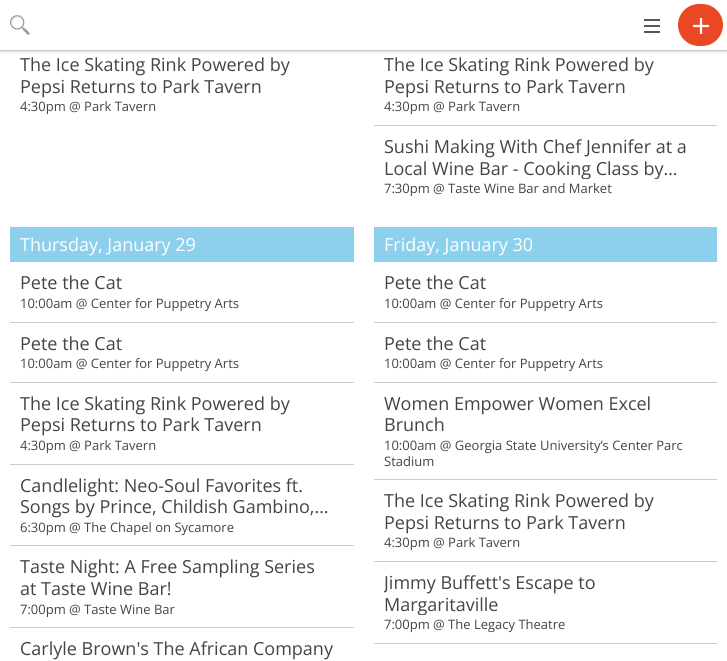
#include <cairo.h>
#include <math.h>
#include <stddef.h>

static cairo_t *ctx;

static void use_color(int r, int g, int b) {
    cairo_set_source_rgb(ctx, r / 255.0, g / 255.0, b / 255.0);
}

static void round_rect(double x, double y, double w, double h, double r) {
    cairo_new_sub_path(ctx);
    cairo_arc(ctx, x + w - r, y + h - r, r, 0, M_PI / 2);
    cairo_arc(ctx, x + r, y + h - r, r, M_PI / 2, M_PI);
    cairo_arc(ctx, x + r, y + r, r, M_PI, 1.5 * M_PI);
    cairo_arc(ctx, x + w - r, y + r, r, 1.5 * M_PI, 2 * M_PI);
    cairo_close_path(ctx);
}

static void shadow(double x, double y, double w, double h, double r, double blur, double alpha) {
    cairo_push_group_with_content(ctx, CAIRO_CONTENT_ALPHA);
    cairo_set_operator(ctx, CAIRO_OPERATOR_SOURCE);
    for (int i = 15; i >= -15 && fmin(w, h) + blur * i / 3 > 0; i -= 2) {
        double e = blur * i / 6;
        cairo_set_source_rgba(ctx, 0, 0, 0, alpha * erfc((i - 1) / 8.5) / 2);
        round_rect(x - e, y - e, w + 2 * e, h + 2 * e, fmax(0, fmin(r + e + blur * .6, fmin(w, h) / 2 + e)));
        cairo_fill(ctx);
    }
    cairo_pattern_t *soft = cairo_pop_group(ctx);
    cairo_mask(ctx, soft);
    cairo_pattern_destroy(soft);
}

static void picture(const char *path, double x, double y, double w, double h) {
    cairo_surface_t *image = cairo_image_surface_create_from_png(path);
    cairo_save(ctx);
    cairo_set_source_surface(ctx, image, x, y);
    cairo_rectangle(ctx, x, y, w, h);
    cairo_fill(ctx);
    cairo_restore(ctx);
    cairo_surface_destroy(image);
}

int main(void) {
    cairo_surface_t *surface = cairo_image_surface_create(CAIRO_FORMAT_RGB24, 727, 661);
    ctx = cairo_create(surface);
    cairo_font_options_t *options = cairo_font_options_create();
    cairo_font_options_set_hint_metrics(options, CAIRO_HINT_METRICS_OFF);
    cairo_font_options_set_hint_style(options, CAIRO_HINT_STYLE_NONE);
    cairo_set_font_options(ctx, options);
    cairo_set_miter_limit(ctx, 4);
    use_color(255, 255, 255);
    cairo_paint(ctx);
    use_color(0, 0, 0);
    shadow(0, 0, 727, 50, 0, 2, 0.5);
    use_color(255, 255, 255);
    cairo_rectangle(ctx, 0, 0, 727, 50);
    cairo_fill(ctx);
    picture("img1.png", 10, 15, 20, 20);
    picture("img2.png", 644, 19, 16, 14);
    use_color(234, 71, 36);
    round_rect(678, 4, 45, 42, 21);
    cairo_fill(ctx);
    picture("img3.png", 693, 18, 16, 16);
    cairo_select_font_face(ctx, "Open Sans", CAIRO_FONT_SLANT_NORMAL, CAIRO_FONT_WEIGHT_NORMAL);
    cairo_set_font_size(ctx, 18);
    use_color(68, 68, 68);
    cairo_move_to(ctx, 20, 71);
    cairo_show_text(ctx, "The Ice Skating Rink Powered by");
    cairo_move_to(ctx, 20, 93);
    cairo_show_text(ctx, "Pepsi Returns to Park Tavern");
    cairo_set_font_size(ctx, 13);
    cairo_move_to(ctx, 20, 111);
    cairo_show_text(ctx, "4:30pm @ Park Tavern");
    use_color(204, 204, 204);
    cairo_rectangle(ctx, 374, 125, 343, 1);
    cairo_fill(ctx);
    cairo_set_font_size(ctx, 18);
    use_color(68, 68, 68);
    cairo_move_to(ctx, 384, 71);
    cairo_show_text(ctx, "The Ice Skating Rink Powered by");
    cairo_move_to(ctx, 384, 93);
    cairo_show_text(ctx, "Pepsi Returns to Park Tavern");
    cairo_set_font_size(ctx, 13);
    cairo_move_to(ctx, 384, 111);
    cairo_show_text(ctx, "4:30pm @ Park Tavern");
    cairo_set_font_size(ctx, 18);
    cairo_move_to(ctx, 384, 153);
    cairo_show_text(ctx, "Sushi Making With Chef Jennifer at a");
    cairo_save(ctx);
    cairo_rectangle(ctx, 384, 136, 313, 43);
    cairo_clip(ctx);
    cairo_move_to(ctx, 384, 175);
    cairo_show_text(ctx, "Local Wine Bar - Cooking Class by…");
    cairo_restore(ctx);
    cairo_set_font_size(ctx, 13);
    cairo_move_to(ctx, 384, 193);
    cairo_show_text(ctx, "7:30pm @ Taste Wine Bar and Market");
    use_color(140, 208, 237);
    cairo_rectangle(ctx, 10, 227, 344, 35);
    cairo_fill(ctx);
    cairo_set_font_size(ctx, 18);
    use_color(255, 255, 255);
    cairo_move_to(ctx, 20, 251);
    cairo_show_text(ctx, "Thursday, January 29");
    use_color(204, 204, 204);
    cairo_rectangle(ctx, 10, 322, 344, 1);
    cairo_fill(ctx);
    use_color(68, 68, 68);
    cairo_move_to(ctx, 20, 289);
    cairo_show_text(ctx, "Pete the Cat");
    cairo_set_font_size(ctx, 13);
    cairo_move_to(ctx, 20, 308);
    cairo_show_text(ctx, "10:00am @ Center for Puppetry Arts");
    use_color(204, 204, 204);
    cairo_rectangle(ctx, 10, 382, 344, 1);
    cairo_fill(ctx);
    cairo_set_font_size(ctx, 18);
    use_color(68, 68, 68);
    cairo_move_to(ctx, 20, 350);
    cairo_show_text(ctx, "Pete the Cat");
    cairo_set_font_size(ctx, 13);
    cairo_move_to(ctx, 20, 368);
    cairo_show_text(ctx, "10:00am @ Center for Puppetry Arts");
    use_color(204, 204, 204);
    cairo_rectangle(ctx, 10, 464, 344, 1);
    cairo_fill(ctx);
    cairo_set_font_size(ctx, 18);
    use_color(68, 68, 68);
    cairo_move_to(ctx, 20, 410);
    cairo_show_text(ctx, "The Ice Skating Rink Powered by");
    cairo_move_to(ctx, 20, 431);
    cairo_show_text(ctx, "Pepsi Returns to Park Tavern");
    cairo_set_font_size(ctx, 13);
    cairo_move_to(ctx, 20, 450);
    cairo_show_text(ctx, "4:30pm @ Park Tavern");
    use_color(204, 204, 204);
    cairo_rectangle(ctx, 10, 545, 344, 1);
    cairo_fill(ctx);
    cairo_set_font_size(ctx, 18);
    use_color(68, 68, 68);
    cairo_move_to(ctx, 20, 492);
    cairo_show_text(ctx, "Candlelight: Neo-Soul Favorites ft.");
    cairo_move_to(ctx, 20, 513);
    cairo_show_text(ctx, "Songs by Prince, Childish Gambino,…");
    cairo_set_font_size(ctx, 13);
    cairo_move_to(ctx, 20, 532);
    cairo_show_text(ctx, "6:30pm @ The Chapel on Sycamore");
    use_color(204, 204, 204);
    cairo_rectangle(ctx, 10, 627, 344, 1);
    cairo_fill(ctx);
    cairo_set_font_size(ctx, 18);
    use_color(68, 68, 68);
    cairo_move_to(ctx, 20, 573);
    cairo_show_text(ctx, "Taste Night: A Free Sampling Series");
    cairo_move_to(ctx, 20, 595);
    cairo_show_text(ctx, "at Taste Wine Bar!");
    cairo_set_font_size(ctx, 13);
    cairo_move_to(ctx, 20, 614);
    cairo_show_text(ctx, "7:00pm @ Taste Wine Bar");
    cairo_set_font_size(ctx, 18);
    cairo_move_to(ctx, 20, 655);
    cairo_show_text(ctx, "Carlyle Brown's The African Company");
    use_color(140, 208, 237);
    cairo_rectangle(ctx, 374, 227, 343, 35);
    cairo_fill(ctx);
    use_color(255, 255, 255);
    cairo_move_to(ctx, 384, 251);
    cairo_show_text(ctx, "Friday, January 30");
    use_color(204, 204, 204);
    cairo_rectangle(ctx, 374, 322, 343, 1);
    cairo_fill(ctx);
    use_color(68, 68, 68);
    cairo_move_to(ctx, 384, 289);
    cairo_show_text(ctx, "Pete the Cat");
    cairo_set_font_size(ctx, 13);
    cairo_move_to(ctx, 384, 308);
    cairo_show_text(ctx, "10:00am @ Center for Puppetry Arts");
    use_color(204, 204, 204);
    cairo_rectangle(ctx, 374, 382, 343, 1);
    cairo_fill(ctx);
    cairo_set_font_size(ctx, 18);
    use_color(68, 68, 68);
    cairo_move_to(ctx, 384, 350);
    cairo_show_text(ctx, "Pete the Cat");
    cairo_set_font_size(ctx, 13);
    cairo_move_to(ctx, 384, 368);
    cairo_show_text(ctx, "10:00am @ Center for Puppetry Arts");
    use_color(204, 204, 204);
    cairo_rectangle(ctx, 374, 479, 343, 1);
    cairo_fill(ctx);
    cairo_set_font_size(ctx, 18);
    use_color(68, 68, 68);
    cairo_move_to(ctx, 384, 410);
    cairo_show_text(ctx, "Women Empower Women Excel");
    cairo_move_to(ctx, 384, 431);
    cairo_show_text(ctx, "Brunch");
    cairo_set_font_size(ctx, 13);
    cairo_move_to(ctx, 384, 450);
    cairo_show_text(ctx, "10:00am @ Georgia State University’s Center Parc");
    cairo_move_to(ctx, 384, 466);
    cairo_show_text(ctx, "Stadium");
    use_color(204, 204, 204);
    cairo_rectangle(ctx, 374, 561, 343, 1);
    cairo_fill(ctx);
    cairo_set_font_size(ctx, 18);
    use_color(68, 68, 68);
    cairo_move_to(ctx, 384, 507);
    cairo_show_text(ctx, "The Ice Skating Rink Powered by");
    cairo_move_to(ctx, 384, 529);
    cairo_show_text(ctx, "Pepsi Returns to Park Tavern");
    cairo_set_font_size(ctx, 13);
    cairo_move_to(ctx, 384, 547);
    cairo_show_text(ctx, "4:30pm @ Park Tavern");
    use_color(204, 204, 204);
    cairo_rectangle(ctx, 374, 643, 343, 1);
    cairo_fill(ctx);
    cairo_save(ctx);
    cairo_rectangle(ctx, 384, 572, 313, 43);
    cairo_clip(ctx);
    cairo_set_font_size(ctx, 18);
    use_color(68, 68, 68);
    cairo_move_to(ctx, 384, 589);
    cairo_show_text(ctx, "Jimmy Buffett's Escape to");
    cairo_move_to(ctx, 384, 611);
    cairo_show_text(ctx, "Margaritaville");
    cairo_restore(ctx);
    use_color(68, 68, 68);
    cairo_move_to(ctx, 384, 629);
    cairo_show_text(ctx, "7:00pm @ The Legacy Theatre");
    cairo_surface_write_to_png(surface, "result.png");
    cairo_font_options_destroy(options);
    cairo_destroy(ctx);
    cairo_surface_destroy(surface);
    return 0;
}
